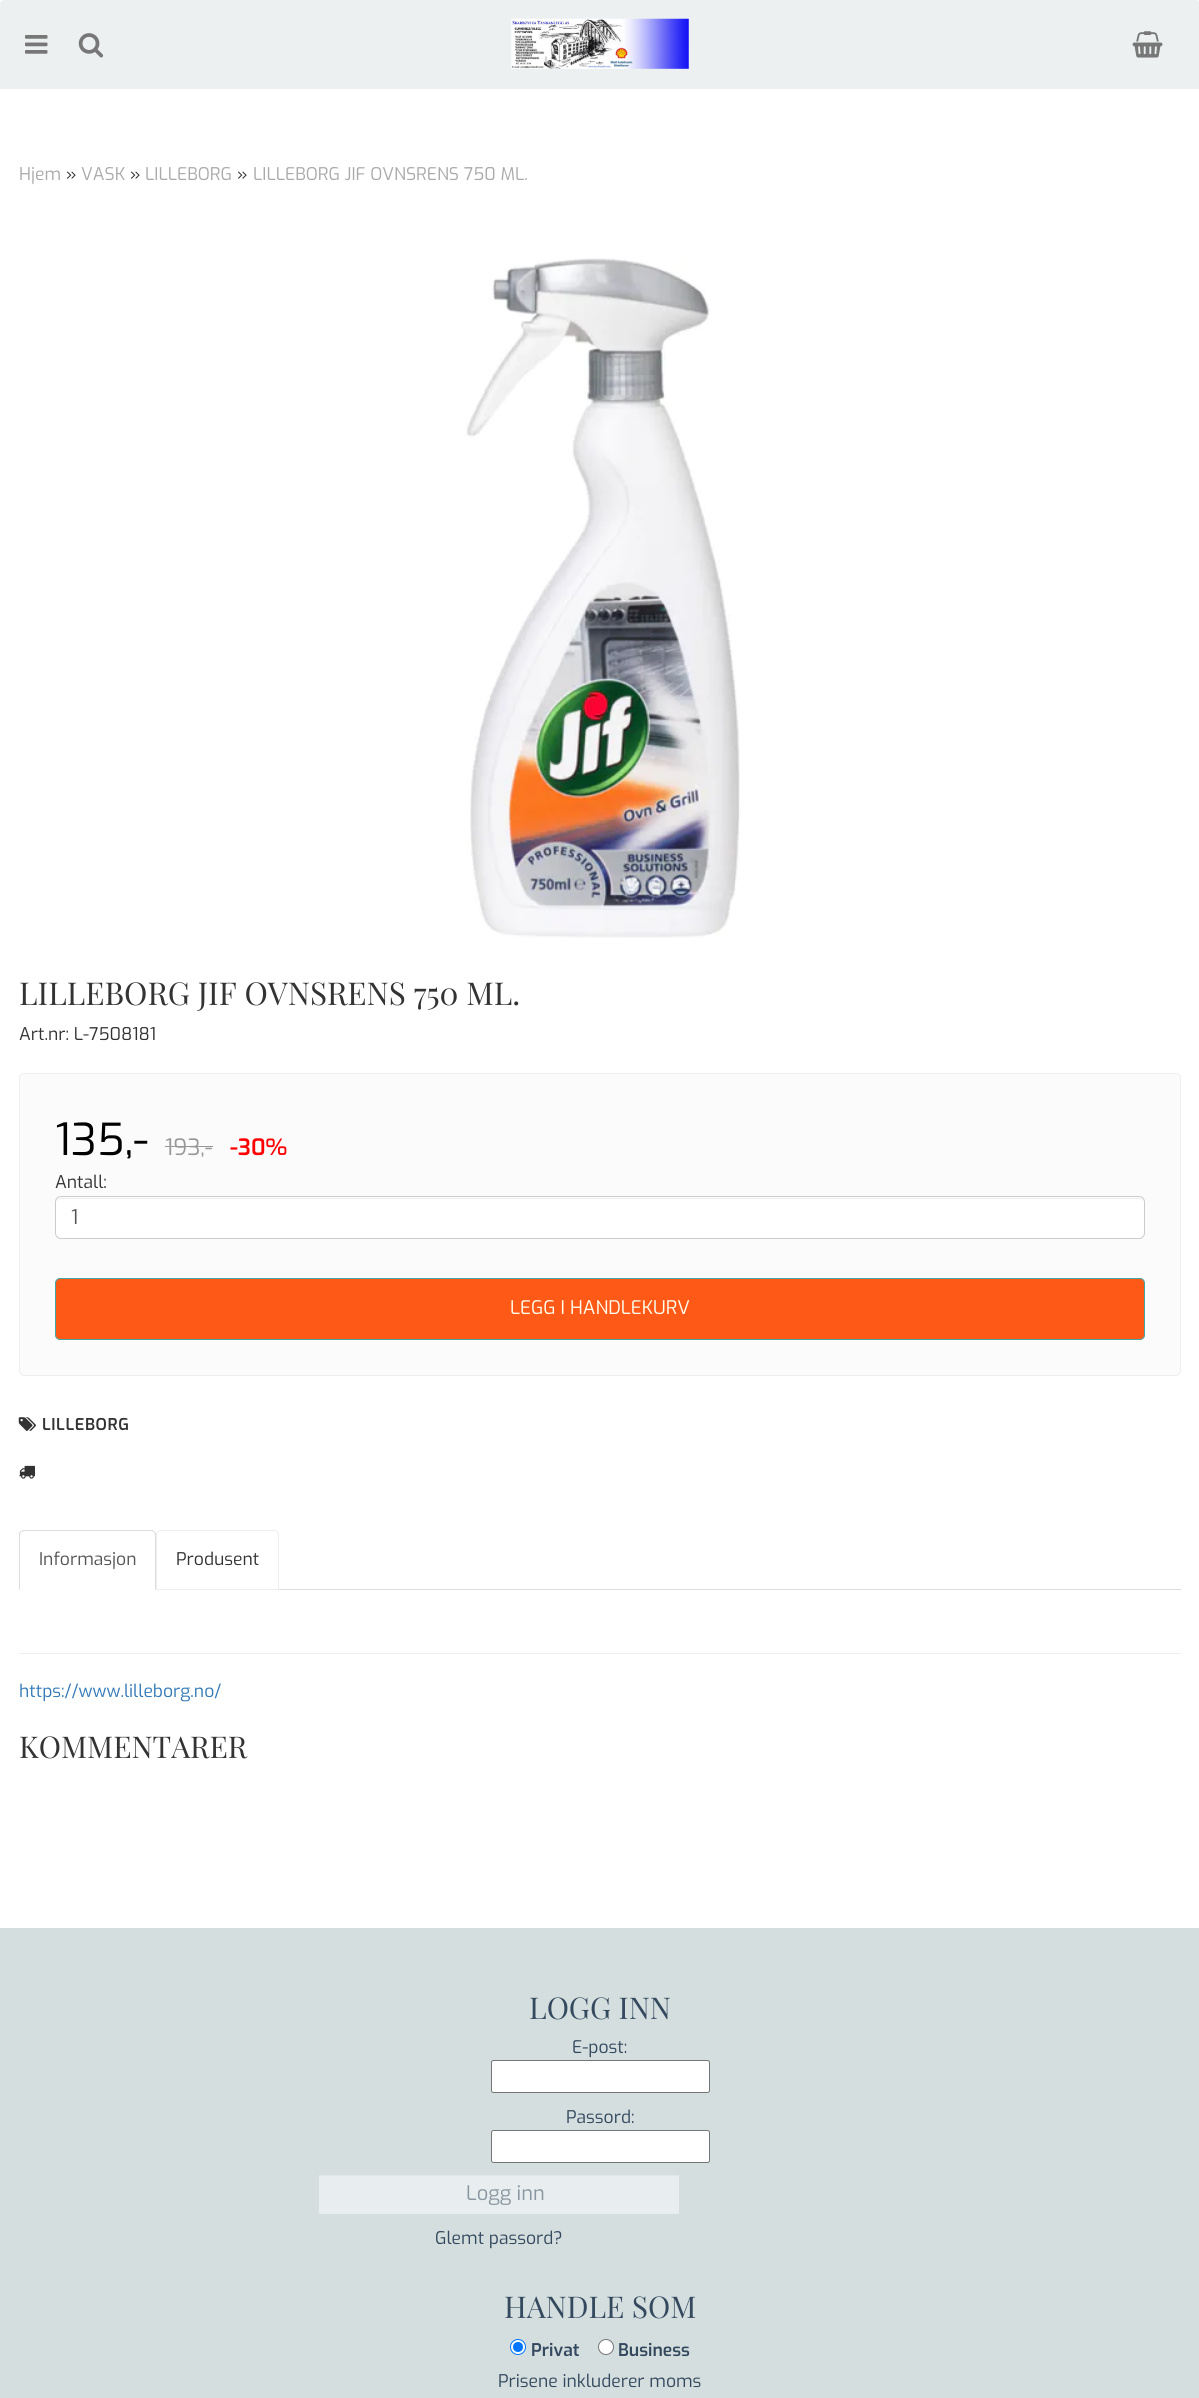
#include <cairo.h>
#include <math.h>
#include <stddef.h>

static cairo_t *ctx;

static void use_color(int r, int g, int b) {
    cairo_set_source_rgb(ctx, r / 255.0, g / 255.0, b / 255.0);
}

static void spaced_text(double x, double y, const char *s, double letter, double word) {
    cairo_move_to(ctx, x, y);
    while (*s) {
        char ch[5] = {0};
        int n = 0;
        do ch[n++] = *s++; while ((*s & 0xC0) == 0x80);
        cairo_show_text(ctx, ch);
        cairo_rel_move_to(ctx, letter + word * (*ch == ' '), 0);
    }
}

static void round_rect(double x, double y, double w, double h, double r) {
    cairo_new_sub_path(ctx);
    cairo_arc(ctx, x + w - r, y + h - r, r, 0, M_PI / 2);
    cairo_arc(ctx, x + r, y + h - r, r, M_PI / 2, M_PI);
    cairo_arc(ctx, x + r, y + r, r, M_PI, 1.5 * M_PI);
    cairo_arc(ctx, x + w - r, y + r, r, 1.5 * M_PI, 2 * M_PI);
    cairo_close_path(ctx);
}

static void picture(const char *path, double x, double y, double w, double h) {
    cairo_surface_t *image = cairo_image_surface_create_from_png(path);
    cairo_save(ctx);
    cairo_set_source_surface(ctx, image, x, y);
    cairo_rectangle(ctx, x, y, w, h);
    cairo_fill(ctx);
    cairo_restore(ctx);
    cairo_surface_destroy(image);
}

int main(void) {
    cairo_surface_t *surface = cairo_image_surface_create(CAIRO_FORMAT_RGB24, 1199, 2398);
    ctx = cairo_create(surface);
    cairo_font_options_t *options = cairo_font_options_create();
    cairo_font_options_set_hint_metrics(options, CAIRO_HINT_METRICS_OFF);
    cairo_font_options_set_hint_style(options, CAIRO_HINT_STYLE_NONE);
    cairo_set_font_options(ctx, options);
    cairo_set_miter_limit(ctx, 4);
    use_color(255, 255, 255);
    cairo_paint(ctx);
    use_color(236, 240, 241);
    cairo_new_path(ctx);
    cairo_move_to(ctx, 4, 0);
    cairo_line_to(ctx, 1196, 0);
    cairo_curve_to(ctx, 1198, 0, 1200, 2, 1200, 4);
    cairo_line_to(ctx, 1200, 89);
    cairo_line_to(ctx, 0, 89);
    cairo_line_to(ctx, 0, 4);
    cairo_curve_to(ctx, 0, 2, 2, 0, 4, 0);
    cairo_close_path(ctx);
    cairo_fill(ctx);
    picture("img1.png", 25, 35, 23, 19);
    picture("img2.png", 78, 33, 26, 25);
    picture("img3.png", 511, 18, 178, 51);
    picture("img4.png", 1132, 31, 31, 27);
    cairo_select_font_face(ctx, "Exo", CAIRO_FONT_SLANT_NORMAL, CAIRO_FONT_WEIGHT_NORMAL);
    cairo_set_font_size(ctx, 17.5);
    use_color(170, 170, 170);
    cairo_move_to(ctx, 19, 180);
    cairo_show_text(ctx, "Hjem");
    use_color(51, 51, 51);
    cairo_move_to(ctx, 66, 180);
    cairo_show_text(ctx, "»");
    use_color(170, 170, 170);
    cairo_move_to(ctx, 81, 180);
    cairo_show_text(ctx, "VASK");
    use_color(51, 51, 51);
    cairo_move_to(ctx, 130, 180);
    cairo_show_text(ctx, "»");
    use_color(170, 170, 170);
    cairo_move_to(ctx, 145, 180);
    cairo_show_text(ctx, "LILLEBORG");
    use_color(51, 51, 51);
    cairo_move_to(ctx, 237, 180);
    cairo_show_text(ctx, "»");
    use_color(170, 170, 170);
    cairo_move_to(ctx, 253, 180);
    cairo_show_text(ctx, "LILLEBORG JIF OVNSRENS 750 ML.");
    picture("img5.png", 465, 258, 275, 680);
    cairo_select_font_face(ctx, "Playfair Display", CAIRO_FONT_SLANT_NORMAL, CAIRO_FONT_WEIGHT_NORMAL);
    cairo_set_font_size(ctx, 31.5);
    use_color(51, 51, 51);
    cairo_move_to(ctx, 19, 1005);
    cairo_show_text(ctx, "LILLEBORG JIF OVNSRENS 750 ML.");
    cairo_select_font_face(ctx, "Exo", CAIRO_FONT_SLANT_NORMAL, CAIRO_FONT_WEIGHT_NORMAL);
    cairo_set_font_size(ctx, 17.5);
    cairo_move_to(ctx, 19, 1040);
    cairo_show_text(ctx, "Art.nr: L-7508181");
    use_color(251, 251, 251);
    round_rect(19.5, 1073.5, 1161, 302, 4.5);
    cairo_fill_preserve(ctx);
    use_color(239, 239, 239);
    cairo_set_line_width(ctx, 1);
    cairo_stroke(ctx);
    cairo_set_font_size(ctx, 44);
    use_color(0, 0, 0);
    cairo_move_to(ctx, 55, 1155);
    cairo_show_text(ctx, "135,-");
    cairo_set_font_size(ctx, 22.5);
    use_color(152, 152, 152);
    cairo_move_to(ctx, 165, 1155);
    cairo_show_text(ctx, "193,-");
    cairo_rectangle(ctx, 165, 1146, 48, 1);
    cairo_fill(ctx);
    cairo_select_font_face(ctx, "Exo SemiBold", CAIRO_FONT_SLANT_NORMAL, CAIRO_FONT_WEIGHT_NORMAL);
    use_color(255, 0, 0);
    cairo_move_to(ctx, 230, 1155);
    cairo_show_text(ctx, "-30%");
    cairo_select_font_face(ctx, "Exo", CAIRO_FONT_SLANT_NORMAL, CAIRO_FONT_WEIGHT_NORMAL);
    cairo_set_font_size(ctx, 17.5);
    use_color(51, 51, 51);
    cairo_move_to(ctx, 55, 1188);
    cairo_show_text(ctx, "Antall:");
    use_color(255, 255, 255);
    round_rect(55, 1196, 1090, 43, 6);
    cairo_fill(ctx);
    use_color(236, 236, 236);
    cairo_new_path(ctx);
    cairo_move_to(ctx, 61, 1199);
    cairo_line_to(ctx, 1139, 1199);
    cairo_curve_to(ctx, 1142, 1199, 1144, 1201, 1144, 1204);
    cairo_curve_to(ctx, 1144, 1201, 1142, 1198, 1139, 1198);
    cairo_line_to(ctx, 61, 1198);
    cairo_curve_to(ctx, 58, 1198, 56, 1201, 56, 1204);
    cairo_curve_to(ctx, 56, 1201, 58, 1199, 61, 1199);
    cairo_close_path(ctx);
    cairo_fill(ctx);
    round_rect(55.5, 1196.5, 1089, 42, 5.5);
    use_color(204, 204, 204);
    cairo_stroke(ctx);
    cairo_set_font_size(ctx, 20);
    use_color(85, 85, 85);
    cairo_move_to(ctx, 71, 1224);
    cairo_show_text(ctx, "1");
    use_color(255, 89, 23);
    round_rect(55.5, 1278.5, 1089, 61, 4.5);
    cairo_fill_preserve(ctx);
    use_color(65, 166, 166);
    cairo_stroke(ctx);
    cairo_set_font_size(ctx, 18.75);
    use_color(255, 255, 238);
    cairo_move_to(ctx, 510, 1314);
    cairo_show_text(ctx, "LEGG I HANDLEKURV");
    picture("img6.png", 18, 1417, 18, 14);
    cairo_select_font_face(ctx, "Exo SemiBold", CAIRO_FONT_SLANT_NORMAL, CAIRO_FONT_WEIGHT_NORMAL);
    cairo_set_font_size(ctx, 16.25);
    use_color(51, 51, 51);
    spaced_text(42, 1430, "LILLEBORG", 0.6, 0);
    picture("img7.png", 19, 1465, 16, 14);
    use_color(221, 221, 221);
    cairo_rectangle(ctx, 279, 1589, 902, 1);
    cairo_fill(ctx);
    cairo_new_path(ctx);
    cairo_move_to(ctx, 24, 1530);
    cairo_curve_to(ctx, 22, 1530, 21, 1531, 20, 1532);
    cairo_line_to(ctx, 21, 1532);
    cairo_line_to(ctx, 24, 1531);
    cairo_line_to(ctx, 151, 1531);
    cairo_line_to(ctx, 154, 1532);
    cairo_line_to(ctx, 155, 1532);
    cairo_curve_to(ctx, 154, 1531, 153, 1530, 151, 1530);
    cairo_close_path(ctx);
    cairo_fill(ctx);
    cairo_new_path(ctx);
    cairo_move_to(ctx, 155, 1532);
    cairo_curve_to(ctx, 156, 1532, 156, 1534, 156, 1535);
    cairo_line_to(ctx, 156, 1590);
    cairo_line_to(ctx, 155, 1589);
    cairo_line_to(ctx, 155, 1535);
    cairo_line_to(ctx, 154, 1532);
    cairo_close_path(ctx);
    cairo_fill(ctx);
    cairo_new_path(ctx);
    cairo_move_to(ctx, 20, 1532);
    cairo_curve_to(ctx, 19, 1532, 19, 1534, 19, 1535);
    cairo_line_to(ctx, 19, 1590);
    cairo_line_to(ctx, 20, 1589);
    cairo_line_to(ctx, 20, 1535);
    cairo_line_to(ctx, 21, 1532);
    cairo_close_path(ctx);
    cairo_fill(ctx);
    cairo_select_font_face(ctx, "Exo", CAIRO_FONT_SLANT_NORMAL, CAIRO_FONT_WEIGHT_NORMAL);
    cairo_set_font_size(ctx, 17.5);
    use_color(85, 85, 85);
    cairo_move_to(ctx, 39, 1565);
    cairo_show_text(ctx, "Informasjon");
    cairo_new_path(ctx);
    cairo_move_to(ctx, 161, 1530.5);
    cairo_line_to(ctx, 274, 1530.5);
    cairo_curve_to(ctx, 276.5, 1530.5, 278.5, 1532.5, 278.5, 1535);
    cairo_line_to(ctx, 278.5, 1589.5);
    cairo_line_to(ctx, 156.5, 1589.5);
    cairo_line_to(ctx, 156.5, 1535);
    cairo_curve_to(ctx, 156.5, 1532.5, 158.5, 1530.5, 161, 1530.5);
    cairo_close_path(ctx);
    use_color(238, 238, 238);
    cairo_stroke(ctx);
    use_color(51, 51, 51);
    cairo_move_to(ctx, 176, 1565);
    cairo_show_text(ctx, "Produsent");
    use_color(238, 238, 238);
    cairo_rectangle(ctx, 19, 1653, 1162, 1);
    cairo_fill(ctx);
    use_color(51, 122, 183);
    cairo_move_to(ctx, 19, 1697);
    cairo_show_text(ctx, "https://www.lilleborg.no/");
    cairo_select_font_face(ctx, "Playfair Display", CAIRO_FONT_SLANT_NORMAL, CAIRO_FONT_WEIGHT_NORMAL);
    cairo_set_font_size(ctx, 30);
    use_color(51, 51, 51);
    cairo_move_to(ctx, 19, 1758);
    cairo_show_text(ctx, "KOMMENTARER");
    use_color(212, 222, 222);
    cairo_rectangle(ctx, 0, 1928, 1199, 470);
    cairo_fill(ctx);
    use_color(52, 73, 94);
    cairo_move_to(ctx, 529, 2019);
    cairo_show_text(ctx, "LOGG INN");
    cairo_select_font_face(ctx, "Exo", CAIRO_FONT_SLANT_NORMAL, CAIRO_FONT_WEIGHT_NORMAL);
    cairo_set_font_size(ctx, 17.5);
    cairo_move_to(ctx, 572, 2053);
    cairo_show_text(ctx, "E-post:");
    use_color(255, 255, 255);
    round_rect(491.5, 2060.5, 218, 32, 2);
    cairo_fill_preserve(ctx);
    use_color(118, 118, 118);
    cairo_stroke(ctx);
    use_color(52, 73, 94);
    cairo_move_to(ctx, 566, 2123);
    cairo_show_text(ctx, "Passord:");
    use_color(255, 255, 255);
    round_rect(491.5, 2130.5, 218, 32, 2);
    cairo_fill_preserve(ctx);
    use_color(118, 118, 118);
    cairo_stroke(ctx);
    use_color(232, 238, 239);
    cairo_rectangle(ctx, 319, 2176, 360, 38);
    cairo_fill(ctx);
    use_color(225, 231, 232);
    cairo_rectangle(ctx, 319, 2175, 360, 1);
    cairo_fill(ctx);
    cairo_set_font_size(ctx, 20);
    use_color(138, 151, 160);
    cairo_move_to(ctx, 466, 2200);
    cairo_show_text(ctx, "Logg inn");
    cairo_set_font_size(ctx, 17.5);
    use_color(52, 73, 94);
    cairo_move_to(ctx, 435, 2244);
    cairo_show_text(ctx, "Glemt passord?");
    cairo_select_font_face(ctx, "Playfair Display", CAIRO_FONT_SLANT_NORMAL, CAIRO_FONT_WEIGHT_NORMAL);
    cairo_set_font_size(ctx, 30);
    cairo_move_to(ctx, 504, 2318);
    cairo_show_text(ctx, "HANDLE SOM");
    use_color(255, 255, 255);
    cairo_new_path(ctx);
    cairo_arc(ctx, 518, 2347, 7.5, 0, 2 * M_PI);
    cairo_fill_preserve(ctx);
    use_color(0, 117, 255);
    cairo_stroke(ctx);
    cairo_arc(ctx, 518, 2347, 5, 0, 2 * M_PI);
    cairo_fill(ctx);
    cairo_select_font_face(ctx, "Exo SemiBold", CAIRO_FONT_SLANT_NORMAL, CAIRO_FONT_WEIGHT_NORMAL);
    cairo_set_font_size(ctx, 17.5);
    use_color(52, 73, 94);
    cairo_move_to(ctx, 531, 2356);
    cairo_show_text(ctx, "Privat");
    use_color(255, 255, 255);
    cairo_new_path(ctx);
    cairo_arc(ctx, 606, 2347, 7.5, 0, 2 * M_PI);
    cairo_fill_preserve(ctx);
    use_color(118, 118, 118);
    cairo_stroke(ctx);
    use_color(52, 73, 94);
    cairo_move_to(ctx, 618, 2356);
    cairo_show_text(ctx, "Business");
    cairo_select_font_face(ctx, "Exo", CAIRO_FONT_SLANT_NORMAL, CAIRO_FONT_WEIGHT_NORMAL);
    cairo_move_to(ctx, 498, 2387);
    cairo_show_text(ctx, "Prisene inkluderer moms");
    cairo_surface_write_to_png(surface, "result.png");
    cairo_font_options_destroy(options);
    cairo_destroy(ctx);
    cairo_surface_destroy(surface);
    return 0;
}
